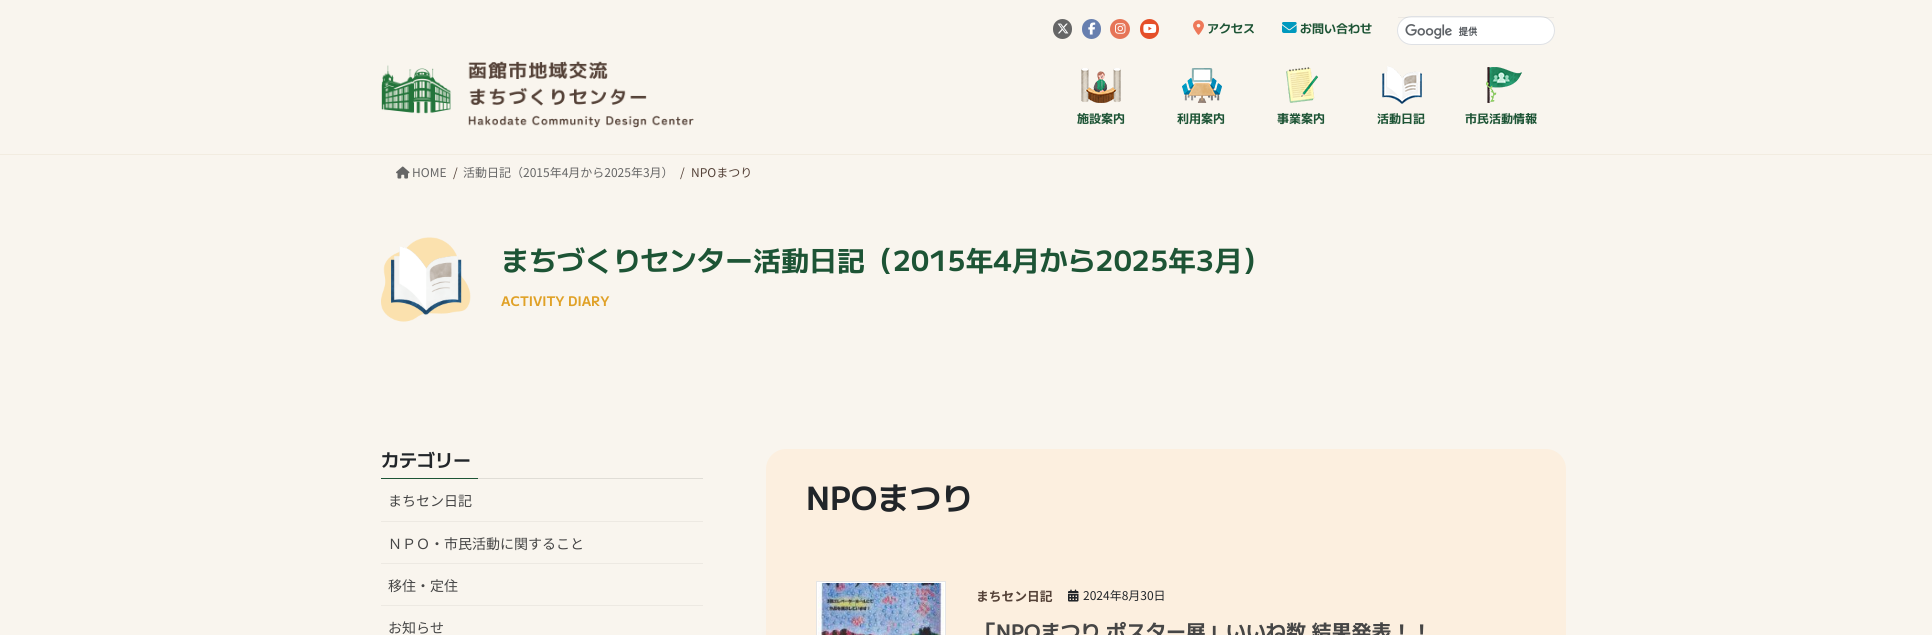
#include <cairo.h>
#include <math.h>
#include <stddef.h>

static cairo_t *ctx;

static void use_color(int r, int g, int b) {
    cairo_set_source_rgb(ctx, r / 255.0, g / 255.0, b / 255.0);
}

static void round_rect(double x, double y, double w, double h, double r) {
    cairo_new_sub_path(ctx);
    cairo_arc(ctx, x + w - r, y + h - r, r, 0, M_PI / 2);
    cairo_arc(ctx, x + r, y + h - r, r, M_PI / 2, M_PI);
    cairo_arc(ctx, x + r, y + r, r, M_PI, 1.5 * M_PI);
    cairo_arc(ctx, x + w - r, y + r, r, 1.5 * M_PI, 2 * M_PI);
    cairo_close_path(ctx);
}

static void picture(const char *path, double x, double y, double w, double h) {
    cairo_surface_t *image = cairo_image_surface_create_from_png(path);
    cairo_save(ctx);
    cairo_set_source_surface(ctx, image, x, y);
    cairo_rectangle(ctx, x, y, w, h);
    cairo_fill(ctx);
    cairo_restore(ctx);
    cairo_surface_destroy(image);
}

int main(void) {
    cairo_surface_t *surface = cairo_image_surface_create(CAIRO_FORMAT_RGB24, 1932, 635);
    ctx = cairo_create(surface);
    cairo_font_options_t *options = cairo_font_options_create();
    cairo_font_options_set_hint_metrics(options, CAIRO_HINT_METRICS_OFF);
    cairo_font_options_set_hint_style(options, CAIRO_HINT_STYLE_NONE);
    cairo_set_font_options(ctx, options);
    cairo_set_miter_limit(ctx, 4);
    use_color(249, 245, 238);
    cairo_paint(ctx);
    use_color(102, 102, 102);
    round_rect(1053, 19, 19, 20, 9.5);
    cairo_fill(ctx);
    picture("img1.png", 1057, 23, 12, 11);
    use_color(103, 127, 175);
    round_rect(1082, 19, 19, 20, 9.5);
    cairo_fill(ctx);
    picture("img2.png", 1088, 22, 8, 13);
    use_color(230, 116, 87);
    cairo_arc(ctx, 1120, 29, 10, 0, 2 * M_PI);
    cairo_fill(ctx);
    picture("img3.png", 1115, 23, 11, 11);
    use_color(229, 79, 41);
    round_rect(1140, 19, 19, 20, 9.5);
    cairo_fill(ctx);
    picture("img4.png", 1143, 24, 14, 9);
    picture("img5.png", 1193, 20, 11, 15);
    cairo_select_font_face(ctx, "M PLUS 2 Thin", CAIRO_FONT_SLANT_NORMAL, CAIRO_FONT_WEIGHT_NORMAL);
    cairo_set_font_size(ctx, 12);
    use_color(29, 84, 53);
    cairo_move_to(ctx, 1207, 33);
    cairo_show_text(ctx, "アクセス");
    picture("img6.png", 1282, 22, 15, 11);
    cairo_move_to(ctx, 1300, 33);
    cairo_show_text(ctx, "お問い合わせ");
    use_color(255, 255, 255);
    round_rect(1397.5, 16.5, 157, 28, 14);
    cairo_fill_preserve(ctx);
    use_color(223, 225, 229);
    cairo_set_line_width(ctx, 1);
    cairo_stroke(ctx);
    cairo_set_source_rgba(ctx, 0, 0, 0, 0.05);
    cairo_rectangle(ctx, 1398, 17, 156, 1);
    cairo_fill(ctx);
    picture("img7.png", 1405, 24, 73, 15);
    picture("img8.png", 381, 61, 313, 67);
    picture("img9.png", 1081, 68, 40, 35);
    use_color(29, 84, 53);
    cairo_move_to(ctx, 1077, 123);
    cairo_show_text(ctx, "施設案内");
    picture("img10.png", 1182, 68, 40, 35);
    cairo_move_to(ctx, 1177, 123);
    cairo_show_text(ctx, "利用案内");
    picture("img11.png", 1286, 67, 32, 36);
    cairo_move_to(ctx, 1277, 123);
    cairo_show_text(ctx, "事業案内");
    picture("img12.png", 1382, 66, 40, 38);
    cairo_move_to(ctx, 1377, 123);
    cairo_show_text(ctx, "活動日記");
    picture("img13.png", 1486, 67, 36, 36);
    cairo_move_to(ctx, 1465, 123);
    cairo_show_text(ctx, "市民活動情報");
    use_color(242, 236, 224);
    cairo_rectangle(ctx, 0, 154, 1932, 1);
    cairo_fill(ctx);
    picture("img14.png", 396, 166, 14, 13);
    cairo_select_font_face(ctx, "Noto Sans JP", CAIRO_FONT_SLANT_NORMAL, CAIRO_FONT_WEIGHT_NORMAL);
    use_color(102, 102, 102);
    cairo_move_to(ctx, 412, 177);
    cairo_show_text(ctx, "HOME");
    use_color(84, 65, 55);
    cairo_move_to(ctx, 453, 177);
    cairo_show_text(ctx, "/");
    use_color(102, 102, 102);
    cairo_move_to(ctx, 463, 177);
    cairo_show_text(ctx, "活動日記（2015年4月から2025年3月）");
    use_color(84, 65, 55);
    cairo_move_to(ctx, 680, 177);
    cairo_show_text(ctx, "/");
    cairo_move_to(ctx, 691, 177);
    cairo_show_text(ctx, "NPOまつり");
    picture("img15.png", 381, 237, 90, 85);
    cairo_select_font_face(ctx, "M PLUS 2 Thin", CAIRO_FONT_SLANT_NORMAL, CAIRO_FONT_WEIGHT_NORMAL);
    cairo_set_font_size(ctx, 28);
    use_color(29, 84, 53);
    cairo_move_to(ctx, 501, 271);
    cairo_show_text(ctx, "まちづくりセンター活動日記（2015年4月から2025年3月）");
    cairo_set_font_size(ctx, 13.25);
    use_color(224, 161, 39);
    cairo_move_to(ctx, 501, 306);
    cairo_show_text(ctx, "ACTIVITY DIARY");
    use_color(224, 221, 214);
    cairo_rectangle(ctx, 478, 478, 225, 1);
    cairo_fill(ctx);
    cairo_set_font_size(ctx, 18);
    use_color(33, 37, 41);
    cairo_move_to(ctx, 381, 467);
    cairo_show_text(ctx, "カテゴリー");
    use_color(29, 84, 53);
    cairo_rectangle(ctx, 381, 478, 97, 1);
    cairo_fill(ctx);
    use_color(237, 233, 226);
    cairo_rectangle(ctx, 381, 521, 322, 1);
    cairo_fill(ctx);
    cairo_select_font_face(ctx, "Noto Sans JP", CAIRO_FONT_SLANT_NORMAL, CAIRO_FONT_WEIGHT_NORMAL);
    cairo_set_font_size(ctx, 14);
    use_color(70, 70, 70);
    cairo_move_to(ctx, 388, 506);
    cairo_show_text(ctx, "まちセン日記");
    use_color(237, 233, 226);
    cairo_rectangle(ctx, 381, 563, 322, 1);
    cairo_fill(ctx);
    use_color(70, 70, 70);
    cairo_move_to(ctx, 388, 549);
    cairo_show_text(ctx, "ＮＰＯ・市民活動に関すること");
    use_color(237, 233, 226);
    cairo_rectangle(ctx, 381, 605, 322, 1);
    cairo_fill(ctx);
    use_color(70, 70, 70);
    cairo_move_to(ctx, 388, 591);
    cairo_show_text(ctx, "移住・定住");
    cairo_move_to(ctx, 388, 633);
    cairo_show_text(ctx, "お知らせ");
    use_color(252, 239, 223);
    cairo_new_path(ctx);
    cairo_move_to(ctx, 786, 449);
    cairo_line_to(ctx, 1546, 449);
    cairo_curve_to(ctx, 1557, 449, 1566, 458, 1566, 469);
    cairo_line_to(ctx, 1566, 561);
    cairo_line_to(ctx, 766, 561);
    cairo_line_to(ctx, 766, 469);
    cairo_curve_to(ctx, 766, 458, 775, 449, 786, 449);
    cairo_close_path(ctx);
    cairo_fill(ctx);
    cairo_select_font_face(ctx, "M PLUS 2 Thin", CAIRO_FONT_SLANT_NORMAL, CAIRO_FONT_WEIGHT_NORMAL);
    cairo_set_font_size(ctx, 32);
    use_color(33, 37, 41);
    cairo_move_to(ctx, 806, 510);
    cairo_show_text(ctx, "NPOまつり");
    use_color(252, 239, 223);
    cairo_rectangle(ctx, 766, 561, 800, 74);
    cairo_fill(ctx);
    cairo_rectangle(ctx, 816.5, 581.5, 129, 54);
    use_color(229, 229, 229);
    cairo_stroke(ctx);
    cairo_rectangle(ctx, 817.5, 582.5, 127, 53);
    use_color(255, 255, 255);
    cairo_stroke(ctx);
    picture("img16.png", 818, 583, 126, 52);
    cairo_select_font_face(ctx, "Noto Sans JP", CAIRO_FONT_SLANT_NORMAL, CAIRO_FONT_WEIGHT_BOLD);
    cairo_set_font_size(ctx, 12.75);
    use_color(84, 65, 55);
    cairo_move_to(ctx, 976, 601);
    cairo_show_text(ctx, "まちセン日記");
    picture("img17.png", 1068, 589, 11, 13);
    cairo_select_font_face(ctx, "Noto Sans JP", CAIRO_FONT_SLANT_NORMAL, CAIRO_FONT_WEIGHT_NORMAL);
    cairo_set_font_size(ctx, 12);
    use_color(33, 37, 41);
    cairo_move_to(ctx, 1083, 600);
    cairo_show_text(ctx, "2024年8月30日");
    cairo_select_font_face(ctx, "M PLUS 2 Thin", CAIRO_FONT_SLANT_NORMAL, CAIRO_FONT_WEIGHT_NORMAL);
    cairo_set_font_size(ctx, 20);
    use_color(70, 70, 70);
    cairo_move_to(ctx, 976, 639);
    cairo_show_text(ctx, "「NPOまつり ポスター展」いいね数 結果発表！！");
    cairo_surface_write_to_png(surface, "result.png");
    cairo_font_options_destroy(options);
    cairo_destroy(ctx);
    cairo_surface_destroy(surface);
    return 0;
}
